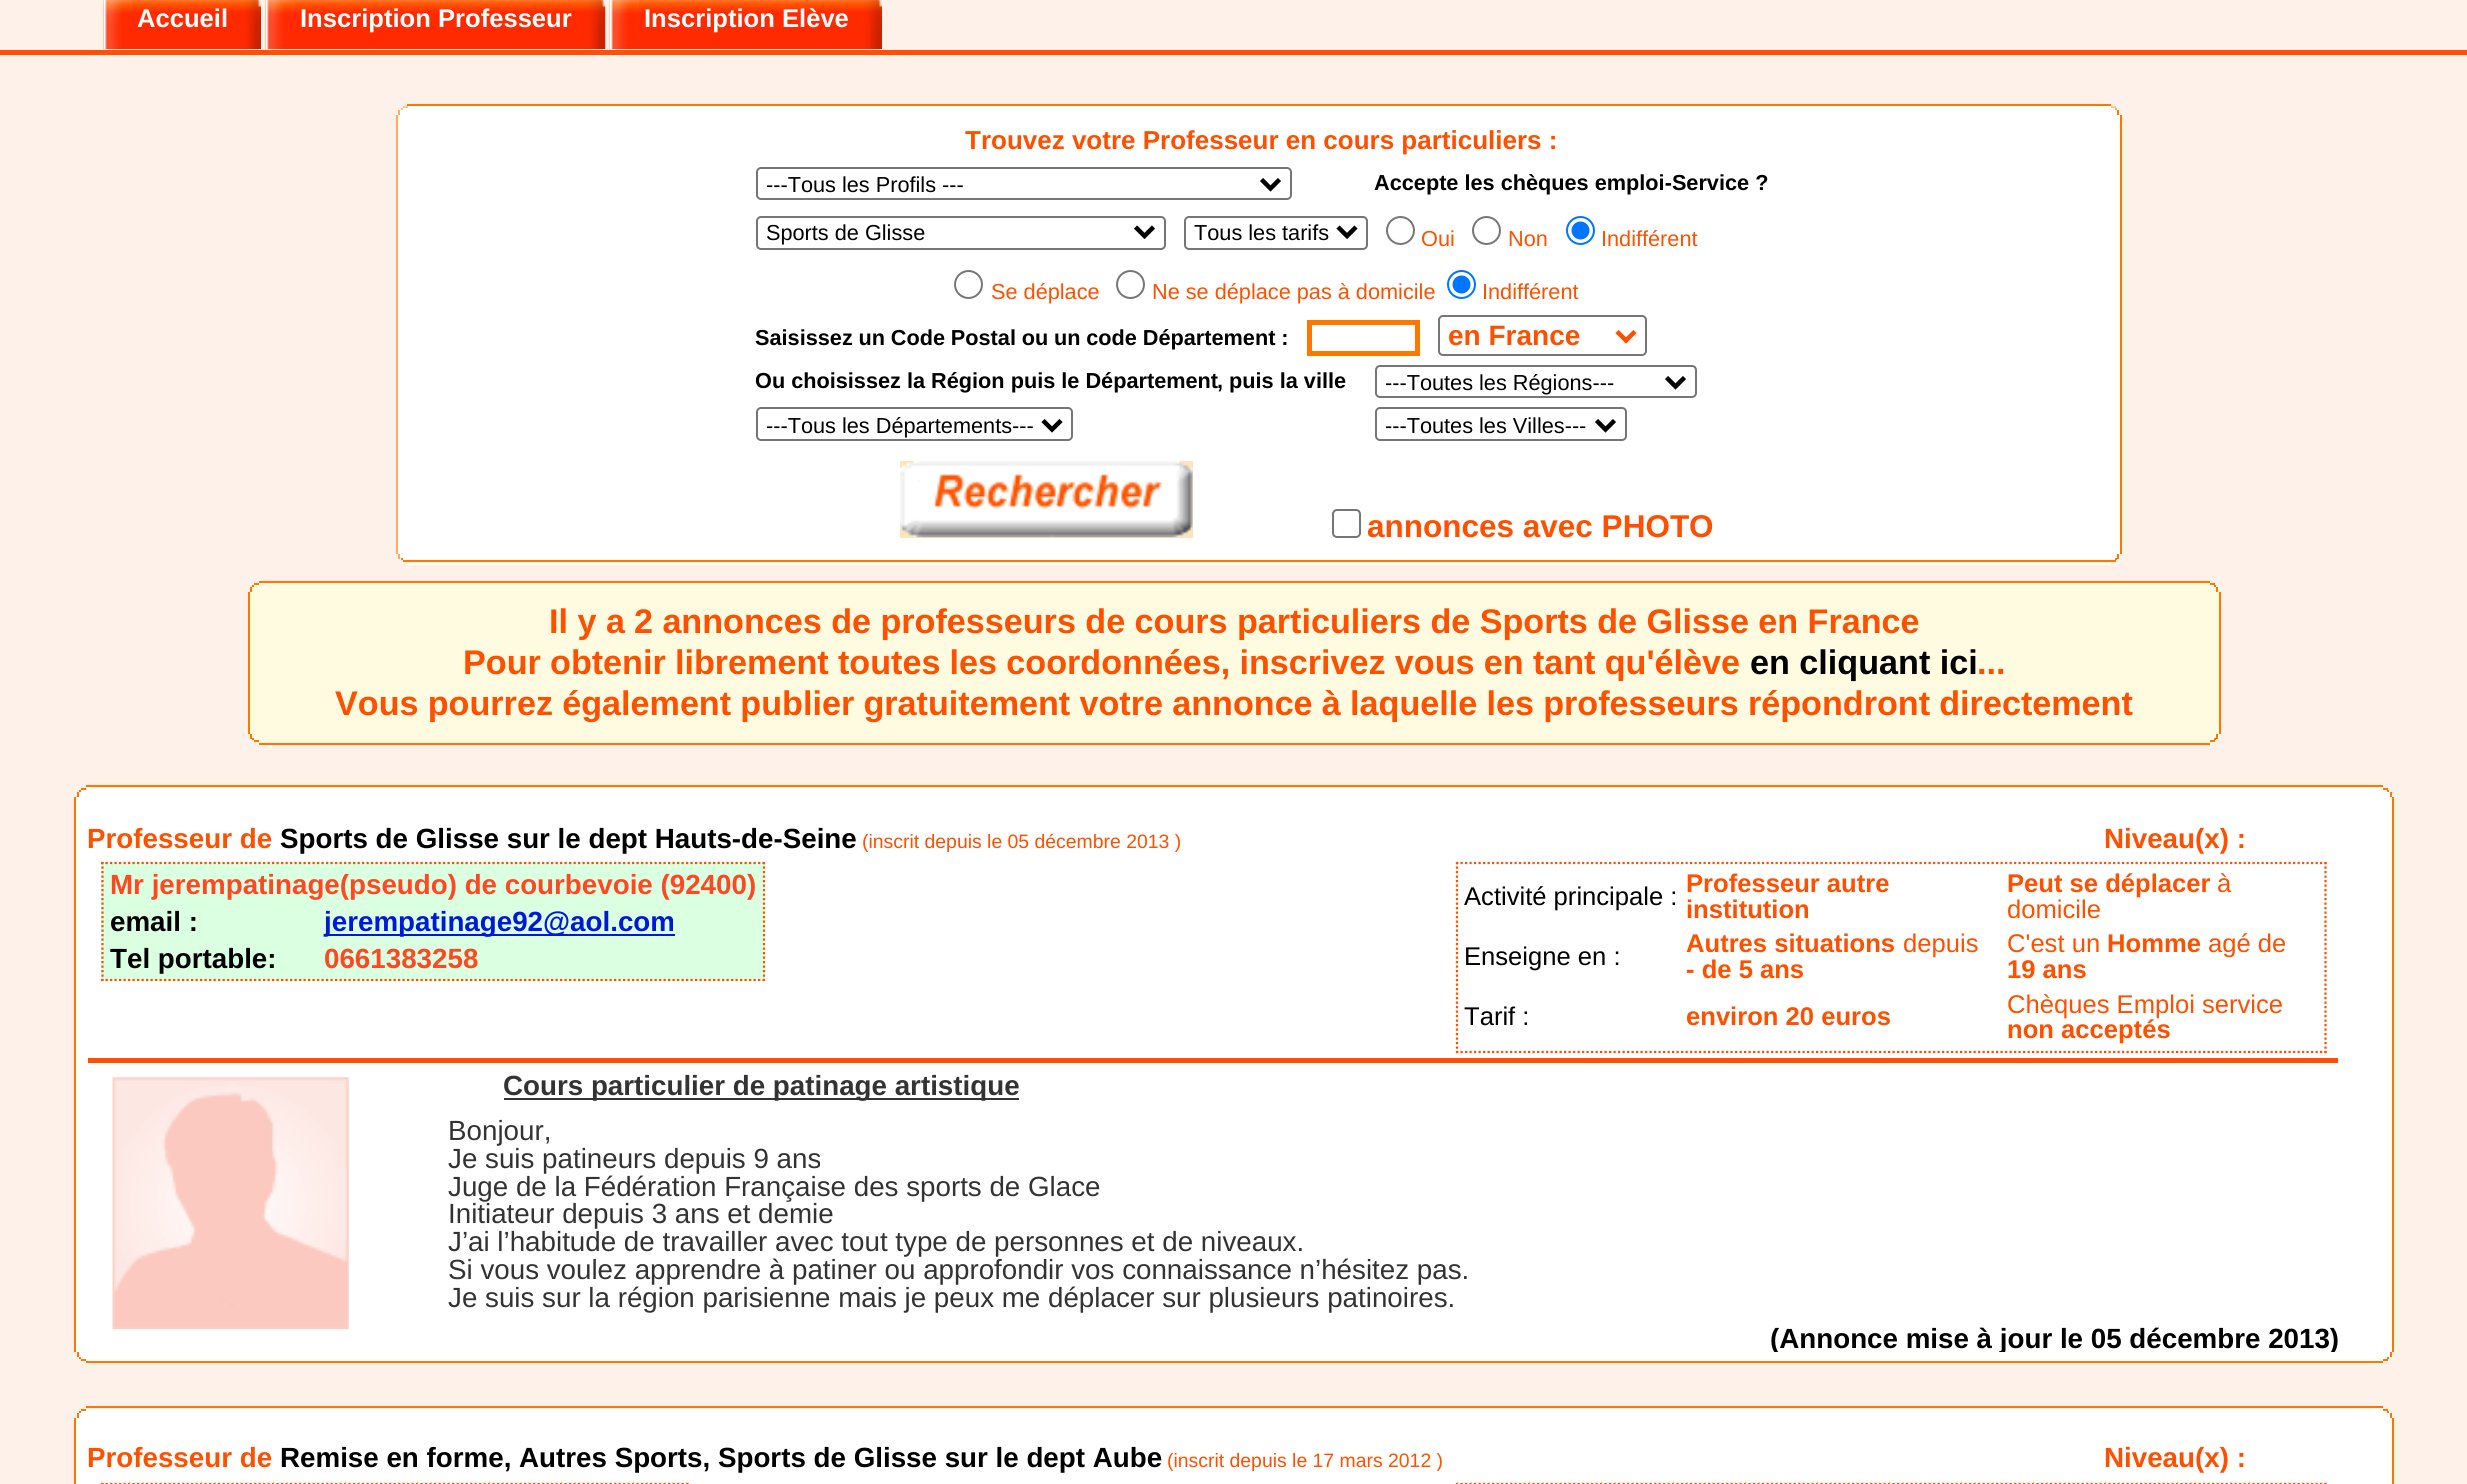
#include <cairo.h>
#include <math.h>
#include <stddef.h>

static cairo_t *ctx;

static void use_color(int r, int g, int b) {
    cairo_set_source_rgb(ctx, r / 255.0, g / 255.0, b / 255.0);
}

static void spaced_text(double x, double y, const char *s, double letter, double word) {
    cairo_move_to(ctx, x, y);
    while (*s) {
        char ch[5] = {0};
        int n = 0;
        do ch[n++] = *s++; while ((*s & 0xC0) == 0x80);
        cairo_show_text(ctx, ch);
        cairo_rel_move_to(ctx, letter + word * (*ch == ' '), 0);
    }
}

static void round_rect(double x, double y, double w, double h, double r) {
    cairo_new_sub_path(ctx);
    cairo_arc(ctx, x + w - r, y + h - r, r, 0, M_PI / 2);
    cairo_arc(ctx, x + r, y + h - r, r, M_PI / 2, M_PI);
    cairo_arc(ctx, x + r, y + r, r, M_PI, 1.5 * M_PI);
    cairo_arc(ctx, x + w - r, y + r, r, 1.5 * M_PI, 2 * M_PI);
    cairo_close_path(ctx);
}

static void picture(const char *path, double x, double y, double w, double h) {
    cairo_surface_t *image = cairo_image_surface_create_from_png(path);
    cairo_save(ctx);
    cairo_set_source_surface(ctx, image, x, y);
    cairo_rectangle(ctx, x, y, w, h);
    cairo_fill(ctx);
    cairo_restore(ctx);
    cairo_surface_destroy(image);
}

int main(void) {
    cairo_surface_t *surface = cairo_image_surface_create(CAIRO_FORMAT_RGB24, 2467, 1484);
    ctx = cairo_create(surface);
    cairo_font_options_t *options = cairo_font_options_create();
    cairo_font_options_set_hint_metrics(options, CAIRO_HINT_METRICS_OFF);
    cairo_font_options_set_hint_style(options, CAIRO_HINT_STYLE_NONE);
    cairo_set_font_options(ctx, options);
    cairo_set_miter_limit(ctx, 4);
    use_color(254, 241, 234);
    cairo_paint(ctx);
    use_color(255, 80, 0);
    cairo_rectangle(ctx, 0, 50, 2467, 5);
    cairo_fill(ctx);
    picture("img1.png", 103, 0, 158, 49);
    picture("img2.png", 103, 0, 30, 49);
    cairo_select_font_face(ctx, "Liberation Sans", CAIRO_FONT_SLANT_NORMAL, CAIRO_FONT_WEIGHT_BOLD);
    cairo_set_font_size(ctx, 25.6);
    use_color(255, 255, 255);
    cairo_move_to(ctx, 137, 27);
    cairo_show_text(ctx, "Accueil");
    picture("img3.png", 265, 0, 341, 49);
    picture("img4.png", 265, 0, 30, 49);
    cairo_move_to(ctx, 300, 27);
    cairo_show_text(ctx, "Inscription Professeur");
    picture("img5.png", 609, 0, 273, 49);
    picture("img6.png", 609, 0, 30, 49);
    cairo_move_to(ctx, 644, 27);
    cairo_show_text(ctx, "Inscription Elève");
    use_color(255, 119, 1);
    cairo_rectangle(ctx, 407, 104, 1704, 2);
    cairo_fill(ctx);
    use_color(255, 255, 255);
    cairo_rectangle(ctx, 403, 106, 1712, 2);
    cairo_fill(ctx);
    use_color(255, 198, 149);
    cairo_rectangle(ctx, 2111, 106, 5, 2);
    cairo_fill(ctx);
    cairo_rectangle(ctx, 403, 106, 5, 2);
    cairo_fill(ctx);
    use_color(255, 255, 255);
    cairo_rectangle(ctx, 401, 108, 1716, 2);
    cairo_fill(ctx);
    use_color(255, 170, 97);
    cairo_rectangle(ctx, 2115, 108, 2, 2);
    cairo_fill(ctx);
    use_color(255, 198, 149);
    cairo_rectangle(ctx, 401, 108, 2, 2);
    cairo_fill(ctx);
    use_color(255, 255, 255);
    cairo_rectangle(ctx, 398, 110, 1722, 449);
    cairo_fill(ctx);
    use_color(255, 119, 1);
    cairo_rectangle(ctx, 2117, 110, 2, 5);
    cairo_fill(ctx);
    use_color(255, 170, 97);
    cairo_rectangle(ctx, 398, 110, 2, 5);
    cairo_fill(ctx);
    use_color(255, 119, 1);
    cairo_rectangle(ctx, 2120, 115, 2, 439);
    cairo_fill(ctx);
    use_color(255, 170, 97);
    cairo_rectangle(ctx, 396, 115, 2, 439);
    cairo_fill(ctx);
    cairo_set_font_size(ctx, 26);
    use_color(255, 80, 0);
    cairo_move_to(ctx, 965, 149);
    cairo_show_text(ctx, "Trouvez votre Professeur en cours particuliers :");
    round_rect(757, 168, 534, 31, 4);
    use_color(118, 118, 118);
    cairo_stroke(ctx);
    cairo_new_path(ctx);
    cairo_move_to(ctx, 1261.5, 179.5);
    cairo_line_to(ctx, 1270.5, 188.5);
    cairo_line_to(ctx, 1279.5, 179.5);
    use_color(0, 0, 0);
    cairo_set_line_width(ctx, 4.5);
    cairo_stroke(ctx);
    cairo_select_font_face(ctx, "Liberation Sans", CAIRO_FONT_SLANT_NORMAL, CAIRO_FONT_WEIGHT_NORMAL);
    cairo_set_font_size(ctx, 21.7);
    cairo_move_to(ctx, 766, 192);
    cairo_show_text(ctx, "---Tous les Profils ---");
    cairo_select_font_face(ctx, "Liberation Sans", CAIRO_FONT_SLANT_NORMAL, CAIRO_FONT_WEIGHT_BOLD);
    cairo_move_to(ctx, 1374, 190);
    cairo_show_text(ctx, "Accepte les chèques emploi-Service ?");
    round_rect(757, 217, 408, 32, 4);
    use_color(118, 118, 118);
    cairo_set_line_width(ctx, 2);
    cairo_stroke(ctx);
    cairo_new_path(ctx);
    cairo_move_to(ctx, 1135.5, 227);
    cairo_line_to(ctx, 1144.5, 236);
    cairo_line_to(ctx, 1153.5, 227);
    use_color(0, 0, 0);
    cairo_set_line_width(ctx, 4.5);
    cairo_stroke(ctx);
    cairo_select_font_face(ctx, "Liberation Sans", CAIRO_FONT_SLANT_NORMAL, CAIRO_FONT_WEIGHT_NORMAL);
    cairo_move_to(ctx, 766, 240);
    cairo_show_text(ctx, "Sports de Glisse");
    round_rect(1185, 217, 182, 32, 4);
    use_color(118, 118, 118);
    cairo_set_line_width(ctx, 2);
    cairo_stroke(ctx);
    cairo_new_path(ctx);
    cairo_move_to(ctx, 1338, 227);
    cairo_line_to(ctx, 1347, 236);
    cairo_line_to(ctx, 1356, 227);
    use_color(0, 0, 0);
    cairo_set_line_width(ctx, 4.5);
    cairo_stroke(ctx);
    cairo_move_to(ctx, 1194, 240);
    cairo_show_text(ctx, "Tous les tarifs");
    cairo_new_path(ctx);
    cairo_arc(ctx, 1400.5, 230.5, 13.5, 0, 2 * M_PI);
    use_color(118, 118, 118);
    cairo_set_line_width(ctx, 2);
    cairo_stroke(ctx);
    use_color(255, 80, 0);
    cairo_move_to(ctx, 1421, 246);
    cairo_show_text(ctx, "Oui");
    cairo_new_path(ctx);
    cairo_arc(ctx, 1486.5, 230.5, 13.5, 0, 2 * M_PI);
    use_color(118, 118, 118);
    cairo_stroke(ctx);
    use_color(255, 80, 0);
    cairo_move_to(ctx, 1508, 246);
    cairo_show_text(ctx, "Non");
    cairo_new_path(ctx);
    cairo_arc(ctx, 1580.5, 230.5, 13.5, 0, 2 * M_PI);
    use_color(0, 117, 255);
    cairo_stroke(ctx);
    cairo_arc(ctx, 1580.5, 230.5, 9, 0, 2 * M_PI);
    cairo_fill(ctx);
    use_color(255, 80, 0);
    cairo_move_to(ctx, 1601, 246);
    cairo_show_text(ctx, "Indifférent");
    cairo_new_path(ctx);
    cairo_arc(ctx, 968.5, 284.5, 13.5, 0, 2 * M_PI);
    use_color(118, 118, 118);
    cairo_stroke(ctx);
    use_color(255, 80, 0);
    cairo_move_to(ctx, 991, 299);
    cairo_show_text(ctx, "Se déplace");
    cairo_new_path(ctx);
    cairo_arc(ctx, 1130.5, 284.5, 13.5, 0, 2 * M_PI);
    use_color(118, 118, 118);
    cairo_stroke(ctx);
    use_color(255, 80, 0);
    cairo_move_to(ctx, 1152, 299);
    cairo_show_text(ctx, "Ne se déplace pas à domicile");
    cairo_new_path(ctx);
    cairo_arc(ctx, 1461.5, 284.5, 13.5, 0, 2 * M_PI);
    use_color(0, 117, 255);
    cairo_stroke(ctx);
    cairo_arc(ctx, 1461.5, 284.5, 9, 0, 2 * M_PI);
    cairo_fill(ctx);
    use_color(255, 80, 0);
    cairo_move_to(ctx, 1482, 299);
    cairo_show_text(ctx, "Indifférent");
    cairo_select_font_face(ctx, "Liberation Sans", CAIRO_FONT_SLANT_NORMAL, CAIRO_FONT_WEIGHT_BOLD);
    use_color(0, 0, 0);
    spaced_text(755, 345, "Saisissez un Code Postal ou un code Département :", 0, -0.25);
    cairo_rectangle(ctx, 1309.5, 322.5, 108, 31);
    use_color(255, 119, 1);
    cairo_set_line_width(ctx, 5);
    cairo_stroke(ctx);
    round_rect(1439, 316, 207, 39, 4);
    use_color(118, 118, 118);
    cairo_set_line_width(ctx, 2);
    cairo_stroke(ctx);
    cairo_new_path(ctx);
    cairo_move_to(ctx, 1617, 331.5);
    cairo_line_to(ctx, 1626, 340.5);
    cairo_line_to(ctx, 1635, 331.5);
    use_color(255, 80, 0);
    cairo_set_line_width(ctx, 4.5);
    cairo_stroke(ctx);
    cairo_set_font_size(ctx, 28);
    cairo_move_to(ctx, 1448, 345);
    cairo_show_text(ctx, "en France");
    cairo_set_font_size(ctx, 21.7);
    use_color(0, 0, 0);
    cairo_move_to(ctx, 755, 388);
    cairo_show_text(ctx, "Ou choisissez la Région puis le Département");
    cairo_move_to(ctx, 1217, 388);
    cairo_show_text(ctx, ", puis la ville");
    round_rect(1376, 366, 320, 31, 4);
    use_color(118, 118, 118);
    cairo_set_line_width(ctx, 2);
    cairo_stroke(ctx);
    cairo_new_path(ctx);
    cairo_move_to(ctx, 1666.5, 377.5);
    cairo_line_to(ctx, 1675.5, 386.5);
    cairo_line_to(ctx, 1684.5, 377.5);
    use_color(0, 0, 0);
    cairo_set_line_width(ctx, 4.5);
    cairo_stroke(ctx);
    cairo_select_font_face(ctx, "Liberation Sans", CAIRO_FONT_SLANT_NORMAL, CAIRO_FONT_WEIGHT_NORMAL);
    cairo_move_to(ctx, 1385, 390);
    cairo_show_text(ctx, "---Toutes les Régions---");
    round_rect(757, 408, 315, 32, 4);
    use_color(118, 118, 118);
    cairo_set_line_width(ctx, 2);
    cairo_stroke(ctx);
    cairo_new_path(ctx);
    cairo_move_to(ctx, 1043, 420.5);
    cairo_line_to(ctx, 1052, 429.5);
    cairo_line_to(ctx, 1061, 420.5);
    use_color(0, 0, 0);
    cairo_set_line_width(ctx, 4.5);
    cairo_stroke(ctx);
    cairo_move_to(ctx, 766, 433);
    cairo_show_text(ctx, "---Tous les Départements---");
    round_rect(1376, 408, 250, 32, 4);
    use_color(118, 118, 118);
    cairo_set_line_width(ctx, 2);
    cairo_stroke(ctx);
    cairo_new_path(ctx);
    cairo_move_to(ctx, 1596.5, 420.5);
    cairo_line_to(ctx, 1605.5, 429.5);
    cairo_line_to(ctx, 1614.5, 420.5);
    use_color(0, 0, 0);
    cairo_set_line_width(ctx, 4.5);
    cairo_stroke(ctx);
    cairo_move_to(ctx, 1385, 433);
    cairo_show_text(ctx, "---Toutes les Villes---");
    use_color(255, 227, 187);
    cairo_rectangle(ctx, 900, 461, 293, 77);
    cairo_fill(ctx);
    picture("img7.png", 900, 461, 293, 77);
    round_rect(1333, 510, 27, 27, 4);
    use_color(118, 118, 118);
    cairo_set_line_width(ctx, 2);
    cairo_stroke(ctx);
    cairo_select_font_face(ctx, "Liberation Sans", CAIRO_FONT_SLANT_NORMAL, CAIRO_FONT_WEIGHT_BOLD);
    cairo_set_font_size(ctx, 31.5);
    use_color(255, 80, 0);
    cairo_move_to(ctx, 1367, 537);
    cairo_show_text(ctx, "annonces avec PHOTO");
    use_color(255, 119, 1);
    cairo_rectangle(ctx, 2117, 554, 2, 5);
    cairo_fill(ctx);
    use_color(255, 170, 97);
    cairo_rectangle(ctx, 398, 554, 2, 5);
    cairo_fill(ctx);
    use_color(255, 255, 255);
    cairo_rectangle(ctx, 401, 559, 1716, 1);
    cairo_fill(ctx);
    use_color(255, 119, 1);
    cairo_rectangle(ctx, 2115, 558, 2, 2);
    cairo_fill(ctx);
    cairo_rectangle(ctx, 401, 558, 2, 2);
    cairo_fill(ctx);
    cairo_rectangle(ctx, 403, 560, 1713, 2);
    cairo_fill(ctx);
    use_color(255, 255, 255);
    cairo_rectangle(ctx, 407, 563, 1704, 2);
    cairo_fill(ctx);
    use_color(255, 119, 1);
    cairo_rectangle(ctx, 259, 581, 1951, 2);
    cairo_fill(ctx);
    use_color(255, 251, 224);
    cairo_rectangle(ctx, 254, 583, 1960, 2);
    cairo_fill(ctx);
    use_color(255, 119, 1);
    cairo_rectangle(ctx, 2210, 583, 5, 2);
    cairo_fill(ctx);
    cairo_rectangle(ctx, 254, 583, 5, 2);
    cairo_fill(ctx);
    use_color(255, 251, 224);
    cairo_rectangle(ctx, 252, 585, 1964, 2);
    cairo_fill(ctx);
    use_color(255, 119, 1);
    cairo_rectangle(ctx, 2214, 585, 2, 2);
    cairo_fill(ctx);
    cairo_rectangle(ctx, 252, 585, 2, 2);
    cairo_fill(ctx);
    use_color(255, 251, 224);
    cairo_rectangle(ctx, 250, 587, 1969, 152);
    cairo_fill(ctx);
    use_color(255, 119, 1);
    cairo_rectangle(ctx, 2216, 587, 2, 5);
    cairo_fill(ctx);
    cairo_rectangle(ctx, 250, 587, 2, 5);
    cairo_fill(ctx);
    cairo_rectangle(ctx, 2219, 592, 2, 142);
    cairo_fill(ctx);
    cairo_rectangle(ctx, 248, 592, 2, 142);
    cairo_fill(ctx);
    cairo_set_font_size(ctx, 34.15);
    use_color(255, 80, 0);
    cairo_move_to(ctx, 549, 633);
    cairo_show_text(ctx, "Il y a");
    spaced_text(634, 633, "2 annonces de professeurs de cours particuliers de Sports de Glisse en France", 0, -0.1);
    spaced_text(463, 674, "Pour obtenir librement toutes les coordonnées, inscrivez vous en tant qu'élève", 0, -0.25);
    use_color(0, 0, 0);
    cairo_move_to(ctx, 1750, 674);
    cairo_show_text(ctx, "en cliquant ici");
    use_color(255, 80, 0);
    cairo_move_to(ctx, 1977, 674);
    cairo_show_text(ctx, "...");
    spaced_text(335, 715, "Vous pourrez également publier gratuitement votre annonce à laquelle les professeurs répondront directement", 0, -0.25);
    use_color(255, 119, 1);
    cairo_rectangle(ctx, 2216, 734, 2, 5);
    cairo_fill(ctx);
    cairo_rectangle(ctx, 250, 734, 2, 5);
    cairo_fill(ctx);
    use_color(255, 251, 224);
    cairo_rectangle(ctx, 252, 739, 1964, 1);
    cairo_fill(ctx);
    use_color(255, 119, 1);
    cairo_rectangle(ctx, 2214, 738, 2, 2);
    cairo_fill(ctx);
    cairo_rectangle(ctx, 252, 738, 2, 2);
    cairo_fill(ctx);
    use_color(255, 251, 224);
    cairo_rectangle(ctx, 254, 740, 1960, 2);
    cairo_fill(ctx);
    use_color(255, 119, 1);
    cairo_rectangle(ctx, 2210, 740, 5, 2);
    cairo_fill(ctx);
    cairo_rectangle(ctx, 254, 740, 5, 2);
    cairo_fill(ctx);
    cairo_rectangle(ctx, 259, 743, 1951, 2);
    cairo_fill(ctx);
    cairo_rectangle(ctx, 86, 785, 2297, 2);
    cairo_fill(ctx);
    use_color(255, 255, 255);
    cairo_rectangle(ctx, 81, 788, 2306, 2);
    cairo_fill(ctx);
    use_color(255, 119, 1);
    cairo_rectangle(ctx, 2383, 788, 5, 2);
    cairo_fill(ctx);
    cairo_rectangle(ctx, 81, 788, 5, 2);
    cairo_fill(ctx);
    use_color(255, 255, 255);
    cairo_rectangle(ctx, 79, 790, 2311, 2);
    cairo_fill(ctx);
    use_color(255, 119, 1);
    cairo_rectangle(ctx, 2387, 790, 2, 2);
    cairo_fill(ctx);
    cairo_rectangle(ctx, 79, 790, 2, 2);
    cairo_fill(ctx);
    use_color(255, 255, 255);
    cairo_rectangle(ctx, 77, 792, 2315, 5);
    cairo_fill(ctx);
    use_color(255, 119, 1);
    cairo_rectangle(ctx, 2390, 792, 2, 5);
    cairo_fill(ctx);
    cairo_rectangle(ctx, 77, 792, 2, 5);
    cairo_fill(ctx);
    use_color(255, 255, 255);
    cairo_rectangle(ctx, 76, 797, 2316, 555);
    cairo_fill(ctx);
    use_color(255, 119, 1);
    cairo_rectangle(ctx, 2392, 797, 2, 555);
    cairo_fill(ctx);
    cairo_rectangle(ctx, 74, 797, 2, 555);
    cairo_fill(ctx);
    cairo_set_font_size(ctx, 27.75);
    use_color(255, 80, 0);
    cairo_move_to(ctx, 87, 848);
    cairo_show_text(ctx, "Professeur de");
    use_color(0, 0, 0);
    cairo_move_to(ctx, 280, 848);
    cairo_show_text(ctx, "Sports de Glisse sur le dept Hauts-de-Seine");
    cairo_select_font_face(ctx, "Liberation Sans", CAIRO_FONT_SLANT_NORMAL, CAIRO_FONT_WEIGHT_NORMAL);
    cairo_set_font_size(ctx, 19.4);
    use_color(255, 80, 0);
    cairo_move_to(ctx, 862, 848);
    cairo_show_text(ctx, "(inscrit depuis le 05 décembre 2013 )");
    cairo_select_font_face(ctx, "Liberation Sans", CAIRO_FONT_SLANT_NORMAL, CAIRO_FONT_WEIGHT_BOLD);
    cairo_set_font_size(ctx, 27.75);
    cairo_move_to(ctx, 2104, 848);
    cairo_show_text(ctx, "Niveau(x) :");
    use_color(219, 255, 225);
    cairo_rectangle(ctx, 101, 862, 664, 119);
    cairo_fill(ctx);
    cairo_new_path(ctx);
    cairo_move_to(ctx, 101, 863);
    cairo_line_to(ctx, 765, 863);
    use_color(255, 80, 0);
    cairo_set_line_width(ctx, 2.2);
    cairo_set_dash(ctx, (double[]){2.25, 2.25}, 2, 0);
    cairo_stroke(ctx);
    cairo_new_path(ctx);
    cairo_move_to(ctx, 764, 862);
    cairo_line_to(ctx, 764, 981);
    cairo_stroke(ctx);
    cairo_new_path(ctx);
    cairo_move_to(ctx, 101, 980);
    cairo_line_to(ctx, 765, 980);
    cairo_stroke(ctx);
    cairo_new_path(ctx);
    cairo_move_to(ctx, 102.5, 862);
    cairo_line_to(ctx, 102.5, 981);
    cairo_stroke(ctx);
    use_color(255, 72, 35);
    cairo_move_to(ctx, 110, 894);
    cairo_show_text(ctx, "Mr jerempatinage(pseudo) de courbevoie (92400)");
    use_color(0, 0, 0);
    cairo_move_to(ctx, 110, 931);
    cairo_show_text(ctx, "email :");
    use_color(0, 23, 220);
    cairo_rectangle(ctx, 324, 934, 351, 2);
    cairo_fill(ctx);
    cairo_move_to(ctx, 324, 931);
    cairo_show_text(ctx, "jerempatinage92@aol.com");
    use_color(0, 0, 0);
    cairo_move_to(ctx, 110, 968);
    cairo_show_text(ctx, "Tel portable:");
    use_color(255, 72, 35);
    cairo_move_to(ctx, 324, 968);
    cairo_show_text(ctx, "0661383258");
    cairo_new_path(ctx);
    cairo_move_to(ctx, 1456, 863);
    cairo_line_to(ctx, 2326.5, 863);
    use_color(255, 80, 0);
    cairo_stroke(ctx);
    cairo_new_path(ctx);
    cairo_move_to(ctx, 2325.5, 862);
    cairo_line_to(ctx, 2325.5, 1053);
    cairo_stroke(ctx);
    cairo_new_path(ctx);
    cairo_move_to(ctx, 1456, 1052);
    cairo_line_to(ctx, 2326.5, 1052);
    cairo_stroke(ctx);
    cairo_new_path(ctx);
    cairo_move_to(ctx, 1457, 862);
    cairo_line_to(ctx, 1457, 1053);
    cairo_stroke(ctx);
    cairo_select_font_face(ctx, "Liberation Sans", CAIRO_FONT_SLANT_NORMAL, CAIRO_FONT_WEIGHT_NORMAL);
    cairo_set_font_size(ctx, 25.6);
    use_color(0, 0, 0);
    cairo_move_to(ctx, 1464, 905);
    cairo_show_text(ctx, "Activité principale :");
    cairo_select_font_face(ctx, "Liberation Sans", CAIRO_FONT_SLANT_NORMAL, CAIRO_FONT_WEIGHT_BOLD);
    use_color(255, 80, 0);
    cairo_move_to(ctx, 1686, 892);
    cairo_show_text(ctx, "Professeur autre");
    cairo_move_to(ctx, 1686, 918);
    cairo_show_text(ctx, "institution");
    cairo_move_to(ctx, 2007, 892);
    cairo_show_text(ctx, "Peut se déplacer");
    cairo_select_font_face(ctx, "Liberation Sans", CAIRO_FONT_SLANT_NORMAL, CAIRO_FONT_WEIGHT_NORMAL);
    cairo_move_to(ctx, 2217, 892);
    cairo_show_text(ctx, "à");
    cairo_move_to(ctx, 2007, 918);
    cairo_show_text(ctx, "domicile");
    use_color(0, 0, 0);
    cairo_move_to(ctx, 1464, 965);
    cairo_show_text(ctx, "Enseigne en :");
    cairo_select_font_face(ctx, "Liberation Sans", CAIRO_FONT_SLANT_NORMAL, CAIRO_FONT_WEIGHT_BOLD);
    use_color(255, 80, 0);
    cairo_move_to(ctx, 1686, 952);
    cairo_show_text(ctx, "Autres situations");
    cairo_select_font_face(ctx, "Liberation Sans", CAIRO_FONT_SLANT_NORMAL, CAIRO_FONT_WEIGHT_NORMAL);
    cairo_move_to(ctx, 1903, 952);
    cairo_show_text(ctx, "depuis");
    cairo_select_font_face(ctx, "Liberation Sans", CAIRO_FONT_SLANT_NORMAL, CAIRO_FONT_WEIGHT_BOLD);
    cairo_move_to(ctx, 1686, 978);
    cairo_show_text(ctx, "- de 5 ans");
    cairo_select_font_face(ctx, "Liberation Sans", CAIRO_FONT_SLANT_NORMAL, CAIRO_FONT_WEIGHT_NORMAL);
    cairo_move_to(ctx, 2007, 952);
    cairo_show_text(ctx, "C'est un");
    cairo_select_font_face(ctx, "Liberation Sans", CAIRO_FONT_SLANT_NORMAL, CAIRO_FONT_WEIGHT_BOLD);
    cairo_move_to(ctx, 2107, 952);
    cairo_show_text(ctx, "Homme");
    cairo_select_font_face(ctx, "Liberation Sans", CAIRO_FONT_SLANT_NORMAL, CAIRO_FONT_WEIGHT_NORMAL);
    cairo_move_to(ctx, 2208, 952);
    cairo_show_text(ctx, "agé de");
    cairo_select_font_face(ctx, "Liberation Sans", CAIRO_FONT_SLANT_NORMAL, CAIRO_FONT_WEIGHT_BOLD);
    cairo_move_to(ctx, 2007, 978);
    cairo_show_text(ctx, "19 ans");
    cairo_select_font_face(ctx, "Liberation Sans", CAIRO_FONT_SLANT_NORMAL, CAIRO_FONT_WEIGHT_NORMAL);
    use_color(0, 0, 0);
    cairo_move_to(ctx, 1464, 1025);
    cairo_show_text(ctx, "Tarif :");
    cairo_select_font_face(ctx, "Liberation Sans", CAIRO_FONT_SLANT_NORMAL, CAIRO_FONT_WEIGHT_BOLD);
    use_color(255, 80, 0);
    cairo_move_to(ctx, 1686, 1025);
    cairo_show_text(ctx, "environ 20 euros");
    cairo_select_font_face(ctx, "Liberation Sans", CAIRO_FONT_SLANT_NORMAL, CAIRO_FONT_WEIGHT_NORMAL);
    cairo_move_to(ctx, 2007, 1013);
    cairo_show_text(ctx, "Chèques Emploi service");
    cairo_select_font_face(ctx, "Liberation Sans", CAIRO_FONT_SLANT_NORMAL, CAIRO_FONT_WEIGHT_BOLD);
    cairo_move_to(ctx, 2007, 1038);
    cairo_show_text(ctx, "non acceptés");
    cairo_rectangle(ctx, 88, 1058, 2250, 5);
    cairo_fill(ctx);
    picture("img8.png", 112, 1077, 237, 253);
    use_color(51, 51, 51);
    cairo_rectangle(ctx, 504, 1098, 515, 2);
    cairo_fill(ctx);
    cairo_set_font_size(ctx, 27.75);
    cairo_move_to(ctx, 503, 1095);
    cairo_show_text(ctx, "Cours particulier de patinage artistique");
    cairo_select_font_face(ctx, "Liberation Sans", CAIRO_FONT_SLANT_NORMAL, CAIRO_FONT_WEIGHT_NORMAL);
    cairo_move_to(ctx, 448, 1140);
    cairo_show_text(ctx, "Bonjour,");
    cairo_move_to(ctx, 448, 1168);
    cairo_show_text(ctx, "Je suis patineurs depuis 9 ans");
    cairo_move_to(ctx, 448, 1196);
    cairo_show_text(ctx, "Juge de la Fédération Française des sports de Glace");
    cairo_move_to(ctx, 448, 1223);
    cairo_show_text(ctx, "Initiateur depuis 3 ans et demie");
    cairo_move_to(ctx, 448, 1251);
    cairo_show_text(ctx, "J’ai l’habitude de travailler avec tout type de personnes et de niveaux.");
    cairo_move_to(ctx, 448, 1279);
    cairo_show_text(ctx, "Si vous voulez apprendre à patiner ou approfondir vos connaissance n’hésitez pas.");
    cairo_move_to(ctx, 448, 1307);
    cairo_show_text(ctx, "Je suis sur la région parisienne mais je peux me déplacer sur plusieurs patinoires.");
    cairo_select_font_face(ctx, "Liberation Sans", CAIRO_FONT_SLANT_NORMAL, CAIRO_FONT_WEIGHT_BOLD);
    use_color(0, 0, 0);
    cairo_move_to(ctx, 1770, 1348);
    cairo_show_text(ctx, "(Annonce mise à jour le 05 décembre 2013)");
    use_color(255, 255, 255);
    cairo_rectangle(ctx, 77, 1352, 2315, 5);
    cairo_fill(ctx);
    use_color(255, 119, 1);
    cairo_rectangle(ctx, 2390, 1352, 2, 5);
    cairo_fill(ctx);
    cairo_rectangle(ctx, 77, 1352, 2, 5);
    cairo_fill(ctx);
    use_color(255, 255, 255);
    cairo_rectangle(ctx, 79, 1357, 2311, 2);
    cairo_fill(ctx);
    use_color(255, 119, 1);
    cairo_rectangle(ctx, 2387, 1357, 2, 2);
    cairo_fill(ctx);
    cairo_rectangle(ctx, 79, 1357, 2, 2);
    cairo_fill(ctx);
    use_color(255, 255, 255);
    cairo_rectangle(ctx, 81, 1359, 2306, 2);
    cairo_fill(ctx);
    use_color(255, 119, 1);
    cairo_rectangle(ctx, 2383, 1359, 5, 2);
    cairo_fill(ctx);
    cairo_rectangle(ctx, 81, 1359, 5, 2);
    cairo_fill(ctx);
    cairo_rectangle(ctx, 86, 1361, 2297, 2);
    cairo_fill(ctx);
    cairo_rectangle(ctx, 86, 1406, 2297, 2);
    cairo_fill(ctx);
    use_color(255, 255, 255);
    cairo_rectangle(ctx, 81, 1409, 2306, 2);
    cairo_fill(ctx);
    use_color(255, 119, 1);
    cairo_rectangle(ctx, 2383, 1409, 5, 2);
    cairo_fill(ctx);
    cairo_rectangle(ctx, 81, 1409, 5, 2);
    cairo_fill(ctx);
    use_color(255, 255, 255);
    cairo_rectangle(ctx, 79, 1411, 2311, 2);
    cairo_fill(ctx);
    use_color(255, 119, 1);
    cairo_rectangle(ctx, 2387, 1411, 2, 2);
    cairo_fill(ctx);
    cairo_rectangle(ctx, 79, 1411, 2, 2);
    cairo_fill(ctx);
    use_color(255, 255, 255);
    cairo_rectangle(ctx, 77, 1413, 2315, 5);
    cairo_fill(ctx);
    use_color(255, 119, 1);
    cairo_rectangle(ctx, 2390, 1413, 2, 5);
    cairo_fill(ctx);
    cairo_rectangle(ctx, 77, 1413, 2, 5);
    cairo_fill(ctx);
    use_color(255, 255, 255);
    cairo_rectangle(ctx, 76, 1418, 2316, 66);
    cairo_fill(ctx);
    use_color(255, 119, 1);
    cairo_rectangle(ctx, 2392, 1418, 2, 66);
    cairo_fill(ctx);
    cairo_rectangle(ctx, 74, 1418, 2, 66);
    cairo_fill(ctx);
    use_color(255, 80, 0);
    cairo_move_to(ctx, 87, 1467);
    cairo_show_text(ctx, "Professeur de");
    use_color(0, 0, 0);
    cairo_move_to(ctx, 280, 1467);
    cairo_show_text(ctx, "Remise en forme, Autres Sports, Sports de Glisse sur le dept Aube");
    cairo_select_font_face(ctx, "Liberation Sans", CAIRO_FONT_SLANT_NORMAL, CAIRO_FONT_WEIGHT_NORMAL);
    cairo_set_font_size(ctx, 19.4);
    use_color(255, 80, 0);
    cairo_move_to(ctx, 1167, 1467);
    cairo_show_text(ctx, "(inscrit depuis le 17 mars 2012 )");
    cairo_select_font_face(ctx, "Liberation Sans", CAIRO_FONT_SLANT_NORMAL, CAIRO_FONT_WEIGHT_BOLD);
    cairo_set_font_size(ctx, 27.75);
    cairo_move_to(ctx, 2104, 1467);
    cairo_show_text(ctx, "Niveau(x) :");
    cairo_new_path(ctx);
    cairo_move_to(ctx, 101, 1484);
    cairo_line_to(ctx, 688.5, 1484);
    cairo_stroke(ctx);
    cairo_new_path(ctx);
    cairo_move_to(ctx, 687.5, 1483);
    cairo_line_to(ctx, 687.5, 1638);
    cairo_stroke(ctx);
    cairo_new_path(ctx);
    cairo_move_to(ctx, 102.5, 1483);
    cairo_line_to(ctx, 102.5, 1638);
    cairo_stroke(ctx);
    cairo_new_path(ctx);
    cairo_move_to(ctx, 1456, 1484);
    cairo_line_to(ctx, 2326.5, 1484);
    cairo_stroke(ctx);
    cairo_new_path(ctx);
    cairo_move_to(ctx, 2325.5, 1483);
    cairo_line_to(ctx, 2325.5, 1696.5);
    cairo_stroke(ctx);
    cairo_new_path(ctx);
    cairo_move_to(ctx, 1457, 1483);
    cairo_line_to(ctx, 1457, 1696.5);
    cairo_stroke(ctx);
    cairo_surface_write_to_png(surface, "result.png");
    cairo_font_options_destroy(options);
    cairo_destroy(ctx);
    cairo_surface_destroy(surface);
    return 0;
}
